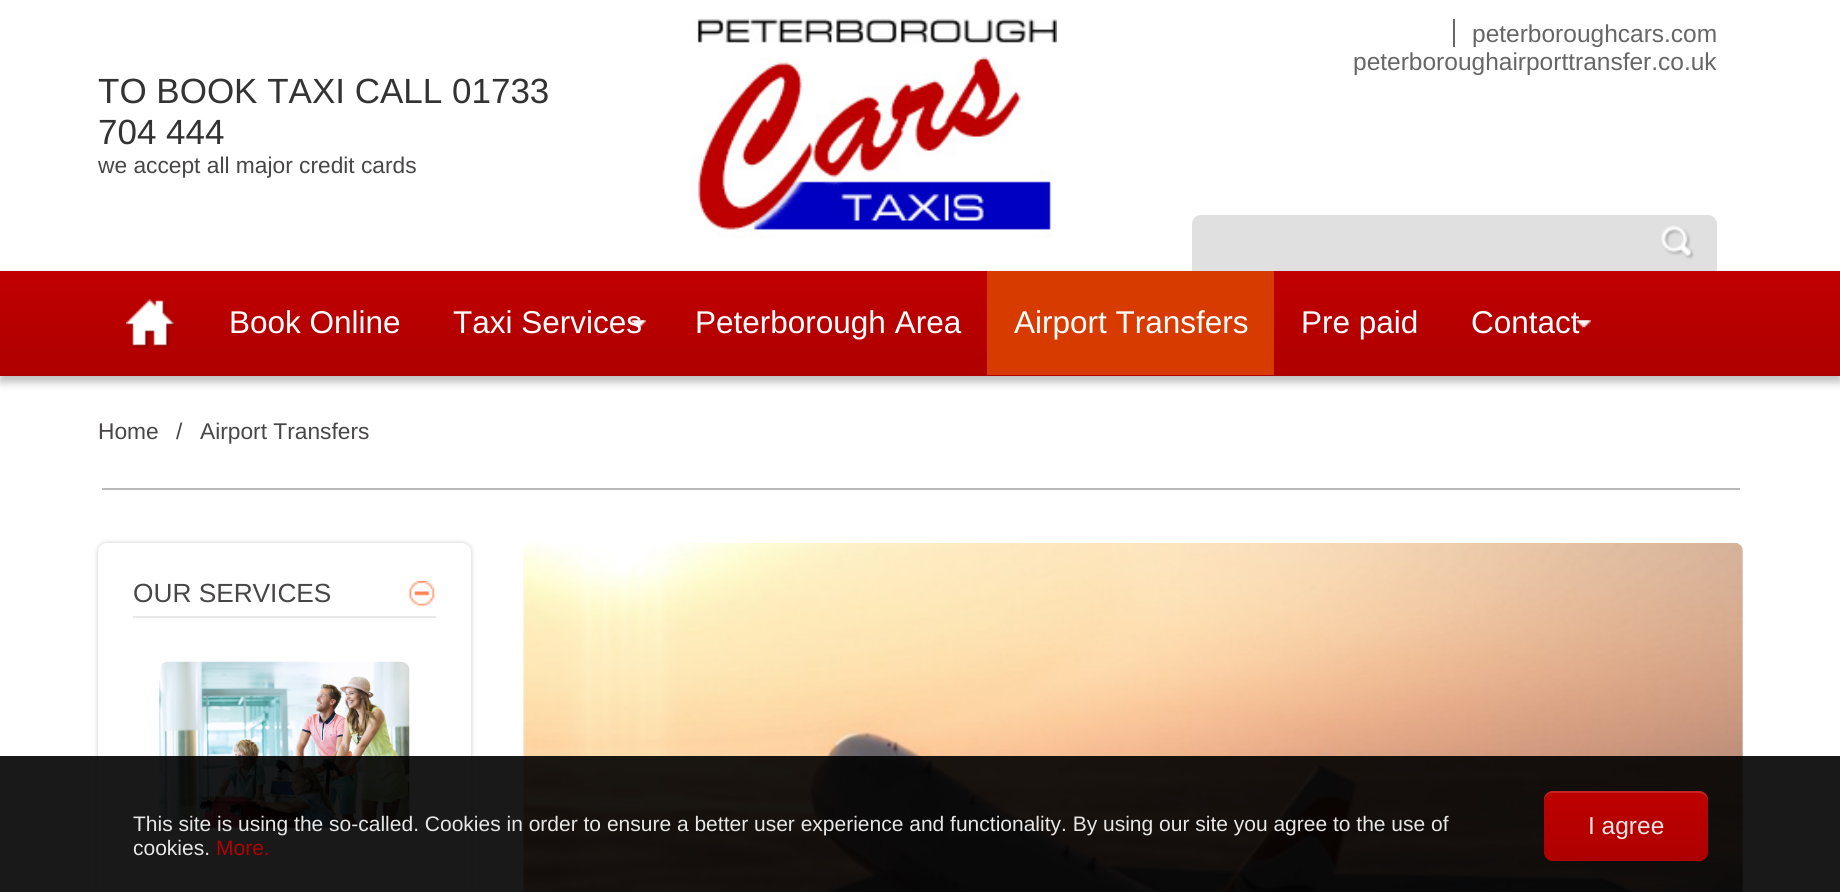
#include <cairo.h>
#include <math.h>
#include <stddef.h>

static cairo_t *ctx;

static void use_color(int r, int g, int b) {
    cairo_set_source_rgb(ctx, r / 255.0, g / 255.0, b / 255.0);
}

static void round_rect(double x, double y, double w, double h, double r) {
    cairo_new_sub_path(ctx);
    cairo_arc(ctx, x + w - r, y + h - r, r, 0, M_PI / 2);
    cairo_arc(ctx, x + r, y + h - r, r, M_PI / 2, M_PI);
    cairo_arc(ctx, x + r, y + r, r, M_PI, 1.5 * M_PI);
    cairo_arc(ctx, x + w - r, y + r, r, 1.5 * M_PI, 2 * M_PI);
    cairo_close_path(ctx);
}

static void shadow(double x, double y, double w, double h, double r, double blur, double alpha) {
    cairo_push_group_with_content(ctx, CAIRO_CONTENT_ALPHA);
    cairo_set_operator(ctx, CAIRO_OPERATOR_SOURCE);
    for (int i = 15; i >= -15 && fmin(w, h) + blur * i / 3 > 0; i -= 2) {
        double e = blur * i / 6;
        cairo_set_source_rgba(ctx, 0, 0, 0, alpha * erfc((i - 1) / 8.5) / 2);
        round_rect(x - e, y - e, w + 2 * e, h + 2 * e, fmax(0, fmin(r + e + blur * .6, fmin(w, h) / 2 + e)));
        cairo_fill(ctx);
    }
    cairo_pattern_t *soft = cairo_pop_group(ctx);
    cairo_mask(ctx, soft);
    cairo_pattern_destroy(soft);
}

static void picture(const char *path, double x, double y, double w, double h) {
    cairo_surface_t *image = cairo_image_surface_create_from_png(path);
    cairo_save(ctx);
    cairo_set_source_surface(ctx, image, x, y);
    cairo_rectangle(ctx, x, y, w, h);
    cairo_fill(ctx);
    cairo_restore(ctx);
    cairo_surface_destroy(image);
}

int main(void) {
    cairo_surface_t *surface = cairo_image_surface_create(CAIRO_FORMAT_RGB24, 1840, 892);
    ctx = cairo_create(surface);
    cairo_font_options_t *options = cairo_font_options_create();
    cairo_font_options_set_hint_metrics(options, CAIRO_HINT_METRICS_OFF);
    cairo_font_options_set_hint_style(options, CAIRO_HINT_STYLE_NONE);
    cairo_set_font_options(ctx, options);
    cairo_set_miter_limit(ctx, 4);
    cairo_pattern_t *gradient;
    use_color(255, 255, 255);
    cairo_paint(ctx);
    picture("img1.png", 689, 18, 368, 220);
    use_color(102, 102, 102);
    cairo_rectangle(ctx, 1453, 19, 2, 28);
    cairo_fill(ctx);
    cairo_select_font_face(ctx, "Liberation Sans", CAIRO_FONT_SLANT_NORMAL, CAIRO_FONT_WEIGHT_NORMAL);
    cairo_set_font_size(ctx, 24.5);
    cairo_move_to(ctx, 1472, 42);
    cairo_show_text(ctx, "peterboroughcars.com");
    cairo_move_to(ctx, 1353, 70);
    cairo_show_text(ctx, "peterboroughairporttransfer.co.uk");
    use_color(188, 188, 188);
    shadow(0, 277, 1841, 105, 0, 4.5, 1);
    use_color(224, 224, 224);
    cairo_new_path(ctx);
    cairo_move_to(ctx, 1201, 215);
    cairo_line_to(ctx, 1708, 215);
    cairo_curve_to(ctx, 1713, 215, 1717, 219, 1717, 224);
    cairo_line_to(ctx, 1717, 271);
    cairo_line_to(ctx, 1192, 271);
    cairo_line_to(ctx, 1192, 224);
    cairo_curve_to(ctx, 1192, 219, 1196, 215, 1201, 215);
    cairo_close_path(ctx);
    cairo_fill(ctx);
    picture("img2.png", 1661, 225, 34, 34);
    cairo_set_font_size(ctx, 35);
    use_color(51, 51, 51);
    cairo_move_to(ctx, 98, 103);
    cairo_show_text(ctx, "TO BOOK TAXI CALL 01733");
    cairo_move_to(ctx, 98, 144);
    cairo_show_text(ctx, "704 444");
    cairo_set_font_size(ctx, 22.75);
    use_color(72, 70, 70);
    cairo_move_to(ctx, 98, 173);
    cairo_show_text(ctx, "we accept all major credit cards");
    gradient = cairo_pattern_create_linear(921, 271, 921, 376);
    cairo_pattern_add_color_stop_rgba(gradient, 0, 0.753, 0, 0, 1);
    cairo_pattern_add_color_stop_rgba(gradient, 1, 0.686, 0, 0, 1);
    cairo_set_source(ctx, gradient);
    cairo_pattern_destroy(gradient);
    cairo_rectangle(ctx, 0, 271, 1840, 105);
    cairo_fill(ctx);
    picture("img3.png", 126, 299, 50, 49);
    cairo_set_font_size(ctx, 31.5);
    use_color(255, 255, 255);
    cairo_move_to(ctx, 229, 333);
    cairo_show_text(ctx, "Book Online");
    picture("img4.png", 631, 320, 15, 8);
    cairo_move_to(ctx, 453, 333);
    cairo_show_text(ctx, "Taxi Services");
    cairo_move_to(ctx, 695, 333);
    cairo_show_text(ctx, "Peterborough Area");
    use_color(216, 59, 0);
    cairo_rectangle(ctx, 987, 271, 287, 104);
    cairo_fill(ctx);
    use_color(255, 255, 255);
    cairo_move_to(ctx, 1014, 333);
    cairo_show_text(ctx, "Airport Transfers");
    cairo_move_to(ctx, 1301, 333);
    cairo_show_text(ctx, "Pre paid");
    picture("img4.png", 1576, 320, 15, 8);
    cairo_move_to(ctx, 1471, 333);
    cairo_show_text(ctx, "Contact");
    use_color(186, 186, 186);
    cairo_rectangle(ctx, 102, 488, 1638, 2);
    cairo_fill(ctx);
    cairo_set_font_size(ctx, 22.75);
    use_color(72, 70, 70);
    cairo_move_to(ctx, 98, 439);
    cairo_show_text(ctx, "Home");
    cairo_move_to(ctx, 176, 439);
    cairo_show_text(ctx, "/");
    cairo_move_to(ctx, 200, 439);
    cairo_show_text(ctx, "Airport Transfers");
    use_color(202, 202, 202);
    shadow(98, 543, 373, 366, 9, 2.5, 1);
    use_color(255, 255, 255);
    round_rect(98, 543, 373, 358, 9);
    cairo_fill(ctx);
    picture("img5.png", 409, 581, 26, 25);
    use_color(233, 233, 233);
    cairo_rectangle(ctx, 133, 616, 303, 2);
    cairo_fill(ctx);
    cairo_set_font_size(ctx, 26.25);
    use_color(72, 70, 70);
    cairo_move_to(ctx, 133, 602);
    cairo_show_text(ctx, "OUR SERVICES");
    picture("img6.png", 159, 661, 251, 167);
    picture("img7.png", 523, 543, 1220, 349);
    cairo_set_source_rgba(ctx, 0, 0, 0, 0.9);
    cairo_rectangle(ctx, 0, 756, 1840, 136);
    cairo_fill(ctx);
    cairo_set_font_size(ctx, 21);
    use_color(231, 231, 231);
    cairo_move_to(ctx, 133, 831);
    cairo_show_text(ctx, "This site is using the so-called. Cookies in order to ensure a better user experience and functionality. By using our site you agree to the use of");
    cairo_move_to(ctx, 133, 855);
    cairo_show_text(ctx, "cookies.");
    use_color(175, 2, 2);
    cairo_move_to(ctx, 216, 855);
    cairo_show_text(ctx, "More.");
    cairo_set_source_rgba(ctx, 0.753, 0, 0, 0.9);
    round_rect(1544, 791, 164, 70, 9);
    cairo_fill(ctx);
    gradient = cairo_pattern_create_linear(1626, 791, 1626, 861);
    cairo_pattern_add_color_stop_rgba(gradient, 0, 0.753, 0, 0, 0.9);
    cairo_pattern_add_color_stop_rgba(gradient, 1, 0.686, 0, 0, 0.9);
    cairo_set_source(ctx, gradient);
    cairo_pattern_destroy(gradient);
    round_rect(1544, 791, 164, 70, 9);
    cairo_fill(ctx);
    cairo_set_source_rgba(ctx, 1, 1, 1, 0.14);
    cairo_new_path(ctx);
    cairo_move_to(ctx, 1552, 793);
    cairo_line_to(ctx, 1699, 793);
    cairo_curve_to(ctx, 1704, 793, 1708, 797, 1708, 802);
    cairo_line_to(ctx, 1708, 800);
    cairo_curve_to(ctx, 1708, 795, 1704, 791, 1699, 791);
    cairo_line_to(ctx, 1553, 791);
    cairo_curve_to(ctx, 1548, 791, 1544, 795, 1544, 800);
    cairo_line_to(ctx, 1544, 802);
    cairo_curve_to(ctx, 1544, 797, 1547, 793, 1552, 793);
    cairo_close_path(ctx);
    cairo_fill(ctx);
    cairo_set_font_size(ctx, 24.5);
    use_color(248, 230, 230);
    cairo_move_to(ctx, 1588, 834);
    cairo_show_text(ctx, "I agree");
    cairo_surface_write_to_png(surface, "result.png");
    cairo_font_options_destroy(options);
    cairo_destroy(ctx);
    cairo_surface_destroy(surface);
    return 0;
}
